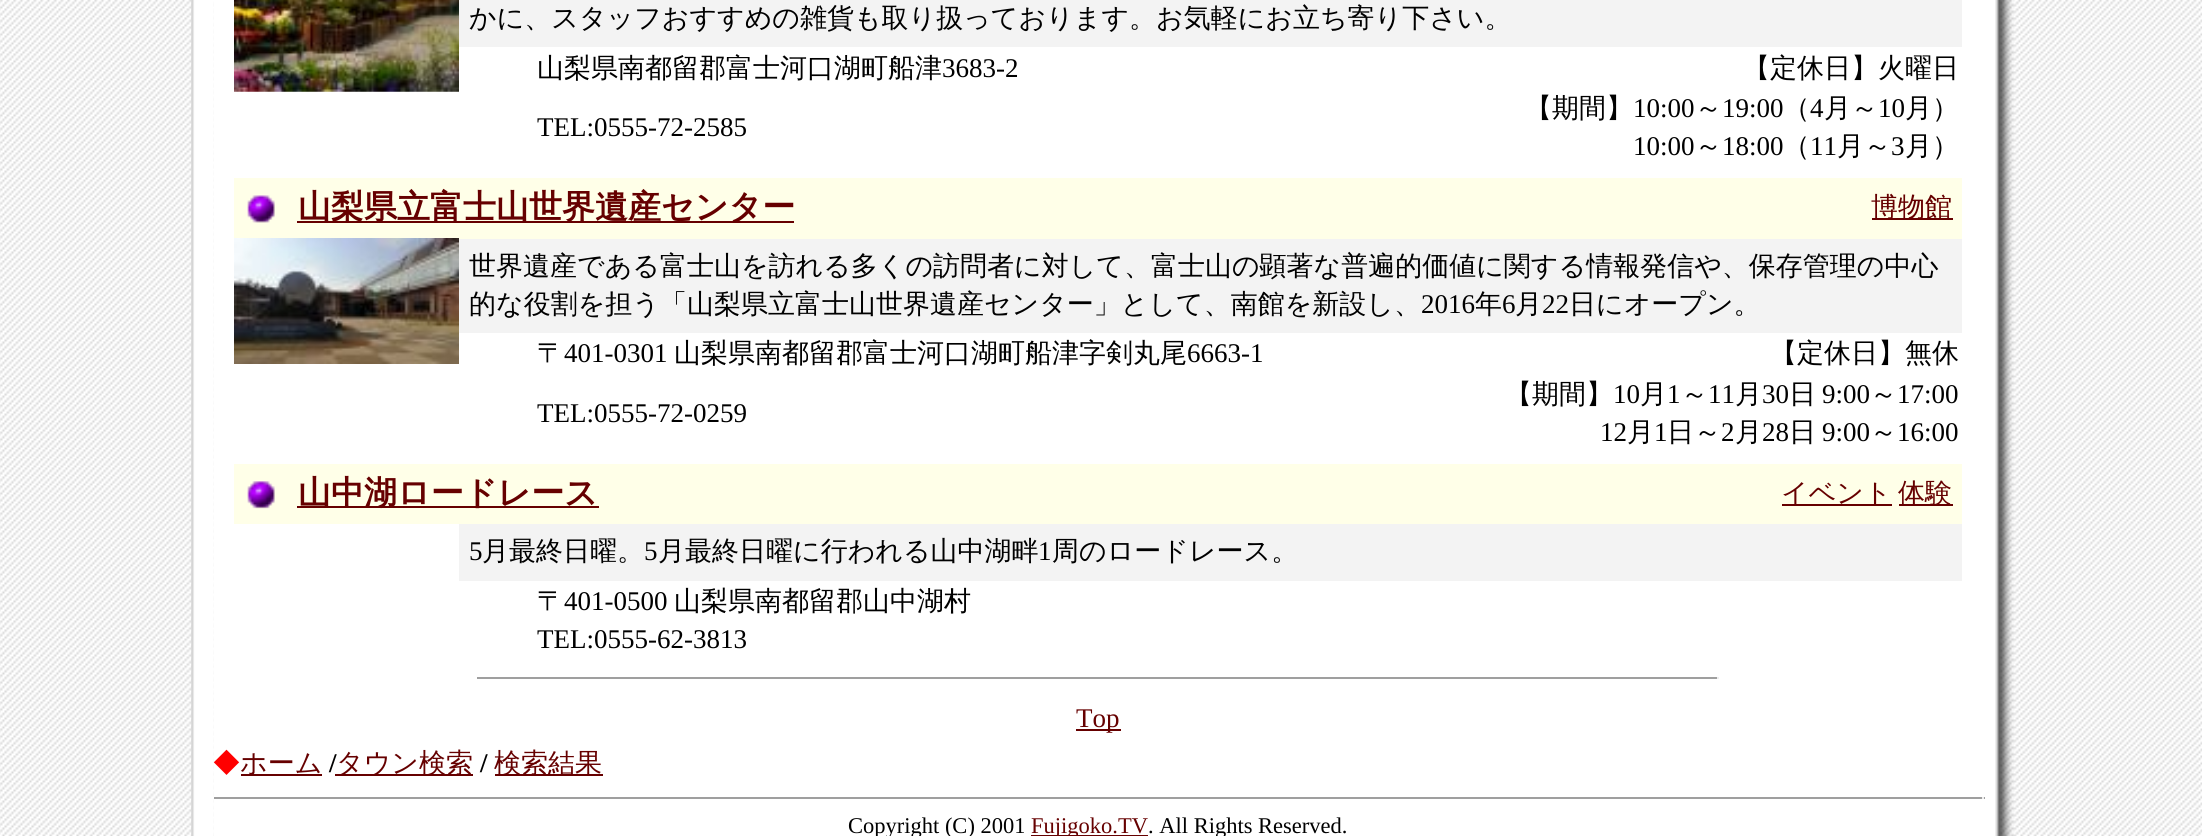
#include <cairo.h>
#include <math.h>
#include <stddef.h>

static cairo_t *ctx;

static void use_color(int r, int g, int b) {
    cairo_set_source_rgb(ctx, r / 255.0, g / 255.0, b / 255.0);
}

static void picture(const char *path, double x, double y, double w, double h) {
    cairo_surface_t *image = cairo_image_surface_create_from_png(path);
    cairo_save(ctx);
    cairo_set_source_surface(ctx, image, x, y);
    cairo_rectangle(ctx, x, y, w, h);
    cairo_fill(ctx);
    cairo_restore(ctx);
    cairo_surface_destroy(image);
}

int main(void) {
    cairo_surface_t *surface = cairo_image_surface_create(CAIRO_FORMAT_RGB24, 2202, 836);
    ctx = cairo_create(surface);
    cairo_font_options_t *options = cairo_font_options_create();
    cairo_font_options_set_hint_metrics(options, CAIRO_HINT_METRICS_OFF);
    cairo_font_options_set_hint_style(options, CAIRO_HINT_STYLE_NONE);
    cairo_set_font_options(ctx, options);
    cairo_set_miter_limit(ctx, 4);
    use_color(255, 255, 255);
    cairo_paint(ctx);
    picture("img1.png", 0, 0, 2202, 836);
    picture("img2.png", 191, 0, 23, 836);
    use_color(255, 255, 255);
    cairo_rectangle(ctx, 214, 0, 1771, 836);
    cairo_fill(ctx);
    picture("img3.png", 234, 0, 225, 92);
    use_color(243, 243, 243);
    cairo_rectangle(ctx, 459, 0, 1503, 47);
    cairo_fill(ctx);
    cairo_select_font_face(ctx, "WenQuanYi Zen Hei Medium", CAIRO_FONT_SLANT_NORMAL, CAIRO_FONT_WEIGHT_NORMAL);
    cairo_set_font_size(ctx, 27);
    use_color(0, 0, 0);
    cairo_move_to(ctx, 469, 27);
    cairo_show_text(ctx, "かに、スタッフおすすめの雑貨も取り扱っております。お気軽にお立ち寄り下さい。");
    cairo_move_to(ctx, 537, 77);
    cairo_show_text(ctx, "山梨県南都留郡富士河口湖町船津");
    cairo_select_font_face(ctx, "Liberation Serif", CAIRO_FONT_SLANT_NORMAL, CAIRO_FONT_WEIGHT_NORMAL);
    cairo_move_to(ctx, 942, 77);
    cairo_show_text(ctx, "3683-2");
    cairo_select_font_face(ctx, "WenQuanYi Zen Hei Medium", CAIRO_FONT_SLANT_NORMAL, CAIRO_FONT_WEIGHT_NORMAL);
    cairo_move_to(ctx, 1743, 77);
    cairo_show_text(ctx, "【定休日】火曜日");
    cairo_select_font_face(ctx, "Liberation Serif", CAIRO_FONT_SLANT_NORMAL, CAIRO_FONT_WEIGHT_NORMAL);
    cairo_move_to(ctx, 537, 136);
    cairo_show_text(ctx, "TEL:0555-72-2585");
    cairo_select_font_face(ctx, "WenQuanYi Zen Hei Medium", CAIRO_FONT_SLANT_NORMAL, CAIRO_FONT_WEIGHT_NORMAL);
    cairo_move_to(ctx, 1525, 117);
    cairo_show_text(ctx, "【期間】");
    cairo_select_font_face(ctx, "Liberation Serif", CAIRO_FONT_SLANT_NORMAL, CAIRO_FONT_WEIGHT_NORMAL);
    cairo_move_to(ctx, 1633, 117);
    cairo_show_text(ctx, "10:00");
    cairo_select_font_face(ctx, "WenQuanYi Zen Hei Medium", CAIRO_FONT_SLANT_NORMAL, CAIRO_FONT_WEIGHT_NORMAL);
    cairo_move_to(ctx, 1695, 117);
    cairo_show_text(ctx, "～");
    cairo_select_font_face(ctx, "Liberation Serif", CAIRO_FONT_SLANT_NORMAL, CAIRO_FONT_WEIGHT_NORMAL);
    cairo_move_to(ctx, 1722, 117);
    cairo_show_text(ctx, "19:00");
    cairo_select_font_face(ctx, "WenQuanYi Zen Hei Medium", CAIRO_FONT_SLANT_NORMAL, CAIRO_FONT_WEIGHT_NORMAL);
    cairo_move_to(ctx, 1783, 117);
    cairo_show_text(ctx, "（");
    cairo_select_font_face(ctx, "Liberation Serif", CAIRO_FONT_SLANT_NORMAL, CAIRO_FONT_WEIGHT_NORMAL);
    cairo_move_to(ctx, 1810, 117);
    cairo_show_text(ctx, "4");
    cairo_select_font_face(ctx, "WenQuanYi Zen Hei Medium", CAIRO_FONT_SLANT_NORMAL, CAIRO_FONT_WEIGHT_NORMAL);
    cairo_move_to(ctx, 1824, 117);
    cairo_show_text(ctx, "月～");
    cairo_select_font_face(ctx, "Liberation Serif", CAIRO_FONT_SLANT_NORMAL, CAIRO_FONT_WEIGHT_NORMAL);
    cairo_move_to(ctx, 1878, 117);
    cairo_show_text(ctx, "10");
    cairo_select_font_face(ctx, "WenQuanYi Zen Hei Medium", CAIRO_FONT_SLANT_NORMAL, CAIRO_FONT_WEIGHT_NORMAL);
    cairo_move_to(ctx, 1905, 117);
    cairo_show_text(ctx, "月）");
    cairo_select_font_face(ctx, "Liberation Serif", CAIRO_FONT_SLANT_NORMAL, CAIRO_FONT_WEIGHT_NORMAL);
    cairo_move_to(ctx, 1633, 155);
    cairo_show_text(ctx, "10:00");
    cairo_select_font_face(ctx, "WenQuanYi Zen Hei Medium", CAIRO_FONT_SLANT_NORMAL, CAIRO_FONT_WEIGHT_NORMAL);
    cairo_move_to(ctx, 1695, 155);
    cairo_show_text(ctx, "～");
    cairo_select_font_face(ctx, "Liberation Serif", CAIRO_FONT_SLANT_NORMAL, CAIRO_FONT_WEIGHT_NORMAL);
    cairo_move_to(ctx, 1722, 155);
    cairo_show_text(ctx, "18:00");
    cairo_select_font_face(ctx, "WenQuanYi Zen Hei Medium", CAIRO_FONT_SLANT_NORMAL, CAIRO_FONT_WEIGHT_NORMAL);
    cairo_move_to(ctx, 1783, 155);
    cairo_show_text(ctx, "（");
    cairo_select_font_face(ctx, "Liberation Serif", CAIRO_FONT_SLANT_NORMAL, CAIRO_FONT_WEIGHT_NORMAL);
    cairo_move_to(ctx, 1810, 155);
    cairo_show_text(ctx, "11");
    cairo_select_font_face(ctx, "WenQuanYi Zen Hei Medium", CAIRO_FONT_SLANT_NORMAL, CAIRO_FONT_WEIGHT_NORMAL);
    cairo_move_to(ctx, 1837, 155);
    cairo_show_text(ctx, "月～");
    cairo_select_font_face(ctx, "Liberation Serif", CAIRO_FONT_SLANT_NORMAL, CAIRO_FONT_WEIGHT_NORMAL);
    cairo_move_to(ctx, 1891, 155);
    cairo_show_text(ctx, "3");
    cairo_select_font_face(ctx, "WenQuanYi Zen Hei Medium", CAIRO_FONT_SLANT_NORMAL, CAIRO_FONT_WEIGHT_NORMAL);
    cairo_move_to(ctx, 1905, 155);
    cairo_show_text(ctx, "月）");
    use_color(255, 255, 232);
    cairo_rectangle(ctx, 234, 178, 54, 60);
    cairo_fill(ctx);
    picture("img4.png", 247, 195, 28, 28);
    cairo_rectangle(ctx, 288, 178, 1674, 61);
    cairo_fill(ctx);
    use_color(102, 0, 0);
    cairo_rectangle(ctx, 297, 221, 497, 2);
    cairo_fill(ctx);
    cairo_select_font_face(ctx, "WenQuanYi Zen Hei", CAIRO_FONT_SLANT_NORMAL, CAIRO_FONT_WEIGHT_BOLD);
    cairo_set_font_size(ctx, 33);
    cairo_move_to(ctx, 298, 218);
    cairo_show_text(ctx, "山梨県立富士山世界遺産センター");
    cairo_rectangle(ctx, 1872, 218, 81, 2);
    cairo_fill(ctx);
    cairo_select_font_face(ctx, "WenQuanYi Zen Hei Medium", CAIRO_FONT_SLANT_NORMAL, CAIRO_FONT_WEIGHT_NORMAL);
    cairo_set_font_size(ctx, 27);
    cairo_move_to(ctx, 1871, 216);
    cairo_show_text(ctx, "博物館");
    picture("img5.png", 234, 238, 225, 126);
    use_color(243, 243, 243);
    cairo_rectangle(ctx, 459, 239, 1503, 94);
    cairo_fill(ctx);
    use_color(0, 0, 0);
    cairo_move_to(ctx, 469, 275);
    cairo_show_text(ctx, "世界遺産である富士山を訪れる多くの訪問者に対して、富士山の顕著な普遍的価値に関する情報発信や、保存管理の中心");
    cairo_move_to(ctx, 469, 313);
    cairo_show_text(ctx, "的な役割を担う「山梨県立富士山世界遺産センター」として、南館を新設し、");
    cairo_select_font_face(ctx, "Liberation Serif", CAIRO_FONT_SLANT_NORMAL, CAIRO_FONT_WEIGHT_NORMAL);
    cairo_move_to(ctx, 1421, 313);
    cairo_show_text(ctx, "2016");
    cairo_select_font_face(ctx, "WenQuanYi Zen Hei Medium", CAIRO_FONT_SLANT_NORMAL, CAIRO_FONT_WEIGHT_NORMAL);
    cairo_move_to(ctx, 1475, 313);
    cairo_show_text(ctx, "年");
    cairo_select_font_face(ctx, "Liberation Serif", CAIRO_FONT_SLANT_NORMAL, CAIRO_FONT_WEIGHT_NORMAL);
    cairo_move_to(ctx, 1502, 313);
    cairo_show_text(ctx, "6");
    cairo_select_font_face(ctx, "WenQuanYi Zen Hei Medium", CAIRO_FONT_SLANT_NORMAL, CAIRO_FONT_WEIGHT_NORMAL);
    cairo_move_to(ctx, 1515, 313);
    cairo_show_text(ctx, "月");
    cairo_select_font_face(ctx, "Liberation Serif", CAIRO_FONT_SLANT_NORMAL, CAIRO_FONT_WEIGHT_NORMAL);
    cairo_move_to(ctx, 1542, 313);
    cairo_show_text(ctx, "22");
    cairo_select_font_face(ctx, "WenQuanYi Zen Hei Medium", CAIRO_FONT_SLANT_NORMAL, CAIRO_FONT_WEIGHT_NORMAL);
    cairo_move_to(ctx, 1569, 313);
    cairo_show_text(ctx, "日にオープン。");
    cairo_move_to(ctx, 537, 362);
    cairo_show_text(ctx, "〒");
    cairo_select_font_face(ctx, "Liberation Serif", CAIRO_FONT_SLANT_NORMAL, CAIRO_FONT_WEIGHT_NORMAL);
    cairo_move_to(ctx, 564, 362);
    cairo_show_text(ctx, "401-0301");
    cairo_select_font_face(ctx, "WenQuanYi Zen Hei Medium", CAIRO_FONT_SLANT_NORMAL, CAIRO_FONT_WEIGHT_NORMAL);
    cairo_move_to(ctx, 674, 362);
    cairo_show_text(ctx, "山梨県南都留郡富士河口湖町船津字剣丸尾");
    cairo_select_font_face(ctx, "Liberation Serif", CAIRO_FONT_SLANT_NORMAL, CAIRO_FONT_WEIGHT_NORMAL);
    cairo_move_to(ctx, 1187, 362);
    cairo_show_text(ctx, "6663-1");
    cairo_select_font_face(ctx, "WenQuanYi Zen Hei Medium", CAIRO_FONT_SLANT_NORMAL, CAIRO_FONT_WEIGHT_NORMAL);
    cairo_move_to(ctx, 1770, 362);
    cairo_show_text(ctx, "【定休日】無休");
    cairo_select_font_face(ctx, "Liberation Serif", CAIRO_FONT_SLANT_NORMAL, CAIRO_FONT_WEIGHT_NORMAL);
    cairo_move_to(ctx, 537, 422);
    cairo_show_text(ctx, "TEL:0555-72-0259");
    cairo_select_font_face(ctx, "WenQuanYi Zen Hei Medium", CAIRO_FONT_SLANT_NORMAL, CAIRO_FONT_WEIGHT_NORMAL);
    cairo_move_to(ctx, 1505, 403);
    cairo_show_text(ctx, "【期間】");
    cairo_select_font_face(ctx, "Liberation Serif", CAIRO_FONT_SLANT_NORMAL, CAIRO_FONT_WEIGHT_NORMAL);
    cairo_move_to(ctx, 1613, 403);
    cairo_show_text(ctx, "10");
    cairo_select_font_face(ctx, "WenQuanYi Zen Hei Medium", CAIRO_FONT_SLANT_NORMAL, CAIRO_FONT_WEIGHT_NORMAL);
    cairo_move_to(ctx, 1640, 403);
    cairo_show_text(ctx, "月");
    cairo_select_font_face(ctx, "Liberation Serif", CAIRO_FONT_SLANT_NORMAL, CAIRO_FONT_WEIGHT_NORMAL);
    cairo_move_to(ctx, 1667, 403);
    cairo_show_text(ctx, "1");
    cairo_select_font_face(ctx, "WenQuanYi Zen Hei Medium", CAIRO_FONT_SLANT_NORMAL, CAIRO_FONT_WEIGHT_NORMAL);
    cairo_move_to(ctx, 1681, 403);
    cairo_show_text(ctx, "～");
    cairo_select_font_face(ctx, "Liberation Serif", CAIRO_FONT_SLANT_NORMAL, CAIRO_FONT_WEIGHT_NORMAL);
    cairo_move_to(ctx, 1708, 403);
    cairo_show_text(ctx, "11");
    cairo_select_font_face(ctx, "WenQuanYi Zen Hei Medium", CAIRO_FONT_SLANT_NORMAL, CAIRO_FONT_WEIGHT_NORMAL);
    cairo_move_to(ctx, 1735, 403);
    cairo_show_text(ctx, "月");
    cairo_select_font_face(ctx, "Liberation Serif", CAIRO_FONT_SLANT_NORMAL, CAIRO_FONT_WEIGHT_NORMAL);
    cairo_move_to(ctx, 1762, 403);
    cairo_show_text(ctx, "30");
    cairo_select_font_face(ctx, "WenQuanYi Zen Hei Medium", CAIRO_FONT_SLANT_NORMAL, CAIRO_FONT_WEIGHT_NORMAL);
    cairo_move_to(ctx, 1789, 403);
    cairo_show_text(ctx, "日");
    cairo_select_font_face(ctx, "Liberation Serif", CAIRO_FONT_SLANT_NORMAL, CAIRO_FONT_WEIGHT_NORMAL);
    cairo_move_to(ctx, 1822, 403);
    cairo_show_text(ctx, "9:00");
    cairo_select_font_face(ctx, "WenQuanYi Zen Hei Medium", CAIRO_FONT_SLANT_NORMAL, CAIRO_FONT_WEIGHT_NORMAL);
    cairo_move_to(ctx, 1870, 403);
    cairo_show_text(ctx, "～");
    cairo_select_font_face(ctx, "Liberation Serif", CAIRO_FONT_SLANT_NORMAL, CAIRO_FONT_WEIGHT_NORMAL);
    cairo_move_to(ctx, 1897, 403);
    cairo_show_text(ctx, "17:00");
    cairo_move_to(ctx, 1600, 441);
    cairo_show_text(ctx, "12");
    cairo_select_font_face(ctx, "WenQuanYi Zen Hei Medium", CAIRO_FONT_SLANT_NORMAL, CAIRO_FONT_WEIGHT_NORMAL);
    cairo_move_to(ctx, 1627, 441);
    cairo_show_text(ctx, "月");
    cairo_select_font_face(ctx, "Liberation Serif", CAIRO_FONT_SLANT_NORMAL, CAIRO_FONT_WEIGHT_NORMAL);
    cairo_move_to(ctx, 1654, 441);
    cairo_show_text(ctx, "1");
    cairo_select_font_face(ctx, "WenQuanYi Zen Hei Medium", CAIRO_FONT_SLANT_NORMAL, CAIRO_FONT_WEIGHT_NORMAL);
    cairo_move_to(ctx, 1667, 441);
    cairo_show_text(ctx, "日～");
    cairo_select_font_face(ctx, "Liberation Serif", CAIRO_FONT_SLANT_NORMAL, CAIRO_FONT_WEIGHT_NORMAL);
    cairo_move_to(ctx, 1721, 441);
    cairo_show_text(ctx, "2");
    cairo_select_font_face(ctx, "WenQuanYi Zen Hei Medium", CAIRO_FONT_SLANT_NORMAL, CAIRO_FONT_WEIGHT_NORMAL);
    cairo_move_to(ctx, 1735, 441);
    cairo_show_text(ctx, "月");
    cairo_select_font_face(ctx, "Liberation Serif", CAIRO_FONT_SLANT_NORMAL, CAIRO_FONT_WEIGHT_NORMAL);
    cairo_move_to(ctx, 1762, 441);
    cairo_show_text(ctx, "28");
    cairo_select_font_face(ctx, "WenQuanYi Zen Hei Medium", CAIRO_FONT_SLANT_NORMAL, CAIRO_FONT_WEIGHT_NORMAL);
    cairo_move_to(ctx, 1789, 441);
    cairo_show_text(ctx, "日");
    cairo_select_font_face(ctx, "Liberation Serif", CAIRO_FONT_SLANT_NORMAL, CAIRO_FONT_WEIGHT_NORMAL);
    cairo_move_to(ctx, 1822, 441);
    cairo_show_text(ctx, "9:00");
    cairo_select_font_face(ctx, "WenQuanYi Zen Hei Medium", CAIRO_FONT_SLANT_NORMAL, CAIRO_FONT_WEIGHT_NORMAL);
    cairo_move_to(ctx, 1870, 441);
    cairo_show_text(ctx, "～");
    cairo_select_font_face(ctx, "Liberation Serif", CAIRO_FONT_SLANT_NORMAL, CAIRO_FONT_WEIGHT_NORMAL);
    cairo_move_to(ctx, 1897, 441);
    cairo_show_text(ctx, "16:00");
    use_color(255, 255, 232);
    cairo_rectangle(ctx, 234, 464, 1728, 60);
    cairo_fill(ctx);
    picture("img6.png", 247, 481, 28, 28);
    use_color(102, 0, 0);
    cairo_rectangle(ctx, 297, 506, 302, 2);
    cairo_fill(ctx);
    cairo_select_font_face(ctx, "WenQuanYi Zen Hei", CAIRO_FONT_SLANT_NORMAL, CAIRO_FONT_WEIGHT_BOLD);
    cairo_set_font_size(ctx, 33);
    cairo_move_to(ctx, 298, 504);
    cairo_show_text(ctx, "山中湖ロードレース");
    cairo_rectangle(ctx, 1782, 504, 110, 2);
    cairo_fill(ctx);
    cairo_select_font_face(ctx, "WenQuanYi Zen Hei Medium", CAIRO_FONT_SLANT_NORMAL, CAIRO_FONT_WEIGHT_NORMAL);
    cairo_set_font_size(ctx, 27);
    cairo_move_to(ctx, 1781, 502);
    cairo_show_text(ctx, "イベント");
    cairo_rectangle(ctx, 1899, 504, 54, 2);
    cairo_fill(ctx);
    cairo_move_to(ctx, 1898, 502);
    cairo_show_text(ctx, "体験");
    use_color(243, 243, 243);
    cairo_rectangle(ctx, 459, 524, 1503, 57);
    cairo_fill(ctx);
    cairo_select_font_face(ctx, "Liberation Serif", CAIRO_FONT_SLANT_NORMAL, CAIRO_FONT_WEIGHT_NORMAL);
    use_color(0, 0, 0);
    cairo_move_to(ctx, 469, 560);
    cairo_show_text(ctx, "5");
    cairo_select_font_face(ctx, "WenQuanYi Zen Hei Medium", CAIRO_FONT_SLANT_NORMAL, CAIRO_FONT_WEIGHT_NORMAL);
    cairo_move_to(ctx, 482, 560);
    cairo_show_text(ctx, "月最終日曜。");
    cairo_select_font_face(ctx, "Liberation Serif", CAIRO_FONT_SLANT_NORMAL, CAIRO_FONT_WEIGHT_NORMAL);
    cairo_move_to(ctx, 644, 560);
    cairo_show_text(ctx, "5");
    cairo_select_font_face(ctx, "WenQuanYi Zen Hei Medium", CAIRO_FONT_SLANT_NORMAL, CAIRO_FONT_WEIGHT_NORMAL);
    cairo_move_to(ctx, 658, 560);
    cairo_show_text(ctx, "月最終日曜に行われる山中湖畔");
    cairo_select_font_face(ctx, "Liberation Serif", CAIRO_FONT_SLANT_NORMAL, CAIRO_FONT_WEIGHT_NORMAL);
    cairo_move_to(ctx, 1038, 560);
    cairo_show_text(ctx, "1");
    cairo_select_font_face(ctx, "WenQuanYi Zen Hei Medium", CAIRO_FONT_SLANT_NORMAL, CAIRO_FONT_WEIGHT_NORMAL);
    cairo_move_to(ctx, 1052, 560);
    cairo_show_text(ctx, "周のロードレース。");
    cairo_move_to(ctx, 537, 610);
    cairo_show_text(ctx, "〒");
    cairo_select_font_face(ctx, "Liberation Serif", CAIRO_FONT_SLANT_NORMAL, CAIRO_FONT_WEIGHT_NORMAL);
    cairo_move_to(ctx, 564, 610);
    cairo_show_text(ctx, "401-0500");
    cairo_select_font_face(ctx, "WenQuanYi Zen Hei Medium", CAIRO_FONT_SLANT_NORMAL, CAIRO_FONT_WEIGHT_NORMAL);
    cairo_move_to(ctx, 674, 610);
    cairo_show_text(ctx, "山梨県南都留郡山中湖村");
    cairo_select_font_face(ctx, "Liberation Serif", CAIRO_FONT_SLANT_NORMAL, CAIRO_FONT_WEIGHT_NORMAL);
    cairo_move_to(ctx, 537, 648);
    cairo_show_text(ctx, "TEL:0555-62-3813");
    use_color(159, 159, 159);
    cairo_rectangle(ctx, 477, 677, 1242, 2);
    cairo_fill(ctx);
    use_color(238, 238, 238);
    cairo_rectangle(ctx, 1717, 677, 2, 2);
    cairo_fill(ctx);
    use_color(102, 0, 0);
    cairo_rectangle(ctx, 1076, 729, 45, 2);
    cairo_fill(ctx);
    cairo_move_to(ctx, 1076, 727);
    cairo_show_text(ctx, "Top");
    cairo_select_font_face(ctx, "WenQuanYi Zen Hei Medium", CAIRO_FONT_SLANT_NORMAL, CAIRO_FONT_WEIGHT_NORMAL);
    use_color(255, 0, 0);
    cairo_move_to(ctx, 213, 772);
    cairo_show_text(ctx, "◆");
    use_color(102, 0, 0);
    cairo_rectangle(ctx, 241, 774, 81, 2);
    cairo_fill(ctx);
    cairo_move_to(ctx, 240, 772);
    cairo_show_text(ctx, "ホーム");
    cairo_select_font_face(ctx, "Liberation Serif", CAIRO_FONT_SLANT_NORMAL, CAIRO_FONT_WEIGHT_BOLD);
    use_color(0, 0, 0);
    cairo_move_to(ctx, 329, 772);
    cairo_show_text(ctx, "/");
    use_color(102, 0, 0);
    cairo_rectangle(ctx, 335, 774, 138, 2);
    cairo_fill(ctx);
    cairo_select_font_face(ctx, "WenQuanYi Zen Hei Medium", CAIRO_FONT_SLANT_NORMAL, CAIRO_FONT_WEIGHT_NORMAL);
    cairo_move_to(ctx, 336, 772);
    cairo_show_text(ctx, "タウン検索");
    cairo_select_font_face(ctx, "Liberation Serif", CAIRO_FONT_SLANT_NORMAL, CAIRO_FONT_WEIGHT_BOLD);
    use_color(0, 0, 0);
    cairo_move_to(ctx, 480, 772);
    cairo_show_text(ctx, "/");
    use_color(102, 0, 0);
    cairo_rectangle(ctx, 495, 774, 108, 2);
    cairo_fill(ctx);
    cairo_select_font_face(ctx, "WenQuanYi Zen Hei Medium", CAIRO_FONT_SLANT_NORMAL, CAIRO_FONT_WEIGHT_NORMAL);
    cairo_move_to(ctx, 494, 772);
    cairo_show_text(ctx, "検索結果");
    use_color(159, 159, 159);
    cairo_rectangle(ctx, 214, 797, 1771, 2);
    cairo_fill(ctx);
    use_color(238, 238, 238);
    cairo_rectangle(ctx, 1982, 797, 2, 2);
    cairo_fill(ctx);
    cairo_select_font_face(ctx, "Liberation Serif", CAIRO_FONT_SLANT_NORMAL, CAIRO_FONT_WEIGHT_NORMAL);
    cairo_set_font_size(ctx, 22.5);
    use_color(0, 0, 0);
    cairo_move_to(ctx, 848, 833);
    cairo_show_text(ctx, "Copyright (C) 2001");
    use_color(102, 0, 0);
    cairo_rectangle(ctx, 1031, 835, 117, 1);
    cairo_fill(ctx);
    cairo_move_to(ctx, 1031, 833);
    cairo_show_text(ctx, "Fujigoko.TV");
    use_color(0, 0, 0);
    cairo_move_to(ctx, 1148, 833);
    cairo_show_text(ctx, ". All Rights Reserved.");
    picture("img7.png", 1985, 0, 29, 836);
    cairo_surface_write_to_png(surface, "result.png");
    cairo_font_options_destroy(options);
    cairo_destroy(ctx);
    cairo_surface_destroy(surface);
    return 0;
}
